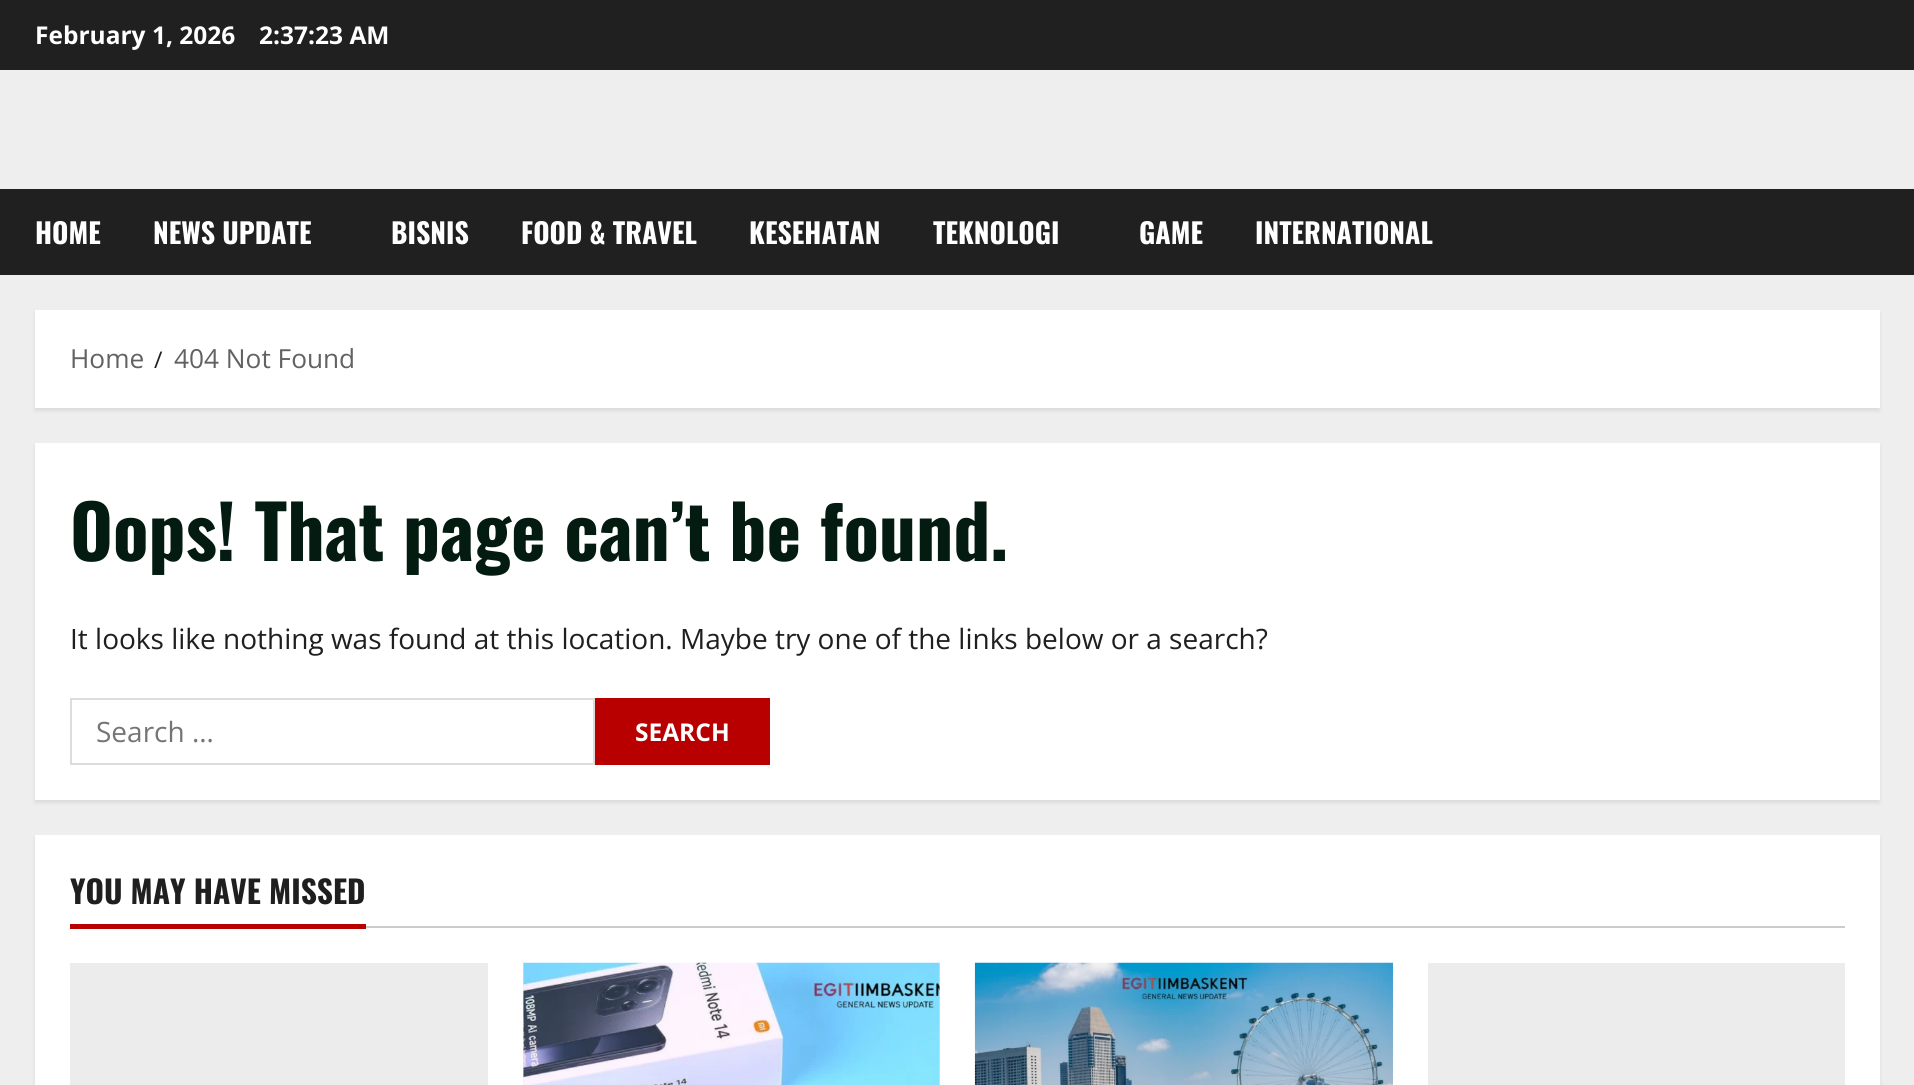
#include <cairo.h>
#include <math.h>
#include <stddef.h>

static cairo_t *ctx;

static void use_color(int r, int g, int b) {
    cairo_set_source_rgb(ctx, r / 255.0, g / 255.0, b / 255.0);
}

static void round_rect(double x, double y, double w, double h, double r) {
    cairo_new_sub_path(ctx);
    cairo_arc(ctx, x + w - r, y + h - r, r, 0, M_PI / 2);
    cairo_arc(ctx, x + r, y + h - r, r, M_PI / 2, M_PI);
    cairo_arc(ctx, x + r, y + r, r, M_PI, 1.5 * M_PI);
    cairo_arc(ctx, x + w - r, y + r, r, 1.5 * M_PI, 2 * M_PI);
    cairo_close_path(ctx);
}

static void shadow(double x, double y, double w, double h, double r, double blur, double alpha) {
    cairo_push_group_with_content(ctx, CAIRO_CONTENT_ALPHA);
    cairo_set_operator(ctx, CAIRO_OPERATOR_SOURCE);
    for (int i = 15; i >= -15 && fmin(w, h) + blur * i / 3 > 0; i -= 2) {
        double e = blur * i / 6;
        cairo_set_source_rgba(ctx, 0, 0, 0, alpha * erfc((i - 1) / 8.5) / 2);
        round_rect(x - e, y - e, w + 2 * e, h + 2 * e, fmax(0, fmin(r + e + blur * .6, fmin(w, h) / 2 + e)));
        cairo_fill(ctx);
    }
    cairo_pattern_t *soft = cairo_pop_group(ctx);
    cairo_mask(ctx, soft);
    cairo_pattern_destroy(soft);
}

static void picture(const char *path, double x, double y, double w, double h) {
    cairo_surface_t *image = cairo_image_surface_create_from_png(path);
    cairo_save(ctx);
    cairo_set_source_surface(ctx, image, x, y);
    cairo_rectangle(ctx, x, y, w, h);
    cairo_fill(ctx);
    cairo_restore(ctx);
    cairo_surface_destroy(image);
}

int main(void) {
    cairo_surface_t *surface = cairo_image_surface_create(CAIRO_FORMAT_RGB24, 1914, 1085);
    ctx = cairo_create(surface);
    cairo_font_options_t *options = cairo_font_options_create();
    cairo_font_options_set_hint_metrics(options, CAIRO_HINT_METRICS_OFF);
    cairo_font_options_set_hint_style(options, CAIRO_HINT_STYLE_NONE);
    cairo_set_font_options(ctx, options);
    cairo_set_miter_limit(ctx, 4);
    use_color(238, 238, 238);
    cairo_paint(ctx);
    use_color(32, 32, 32);
    cairo_rectangle(ctx, 0, 0, 1914, 70);
    cairo_fill(ctx);
    cairo_select_font_face(ctx, "Open Sans", CAIRO_FONT_SLANT_NORMAL, CAIRO_FONT_WEIGHT_BOLD);
    cairo_set_font_size(ctx, 24.5);
    use_color(255, 255, 255);
    cairo_move_to(ctx, 35, 44);
    cairo_show_text(ctx, "February 1, 2026");
    cairo_move_to(ctx, 259, 44);
    cairo_show_text(ctx, "2:37:23 AM");
    use_color(32, 32, 32);
    cairo_rectangle(ctx, 0, 189, 1914, 86);
    cairo_fill(ctx);
    cairo_select_font_face(ctx, "Oswald", CAIRO_FONT_SLANT_NORMAL, CAIRO_FONT_WEIGHT_BOLD);
    cairo_set_font_size(ctx, 28);
    use_color(255, 255, 255);
    cairo_move_to(ctx, 35, 244);
    cairo_show_text(ctx, "HOME");
    cairo_move_to(ctx, 153, 244);
    cairo_show_text(ctx, "NEWS UPDATE");
    cairo_move_to(ctx, 391, 244);
    cairo_show_text(ctx, "BISNIS");
    cairo_move_to(ctx, 521, 244);
    cairo_show_text(ctx, "FOOD & TRAVEL");
    cairo_move_to(ctx, 749, 244);
    cairo_show_text(ctx, "KESEHATAN");
    cairo_move_to(ctx, 933, 244);
    cairo_show_text(ctx, "TEKNOLOGI");
    cairo_move_to(ctx, 1139, 244);
    cairo_show_text(ctx, "GAME");
    cairo_move_to(ctx, 1255, 244);
    cairo_show_text(ctx, "INTERNATIONAL");
    use_color(0, 0, 0);
    shadow(35, 313, 1845, 98, 0, 2, 0.08);
    use_color(255, 255, 255);
    cairo_rectangle(ctx, 35, 310, 1845, 98);
    cairo_fill(ctx);
    cairo_select_font_face(ctx, "Open Sans", CAIRO_FONT_SLANT_NORMAL, CAIRO_FONT_WEIGHT_NORMAL);
    cairo_set_font_size(ctx, 26.25);
    use_color(98, 98, 98);
    cairo_move_to(ctx, 70, 368);
    cairo_show_text(ctx, "Home");
    cairo_set_font_size(ctx, 23);
    use_color(31, 31, 31);
    cairo_move_to(ctx, 154, 368);
    cairo_show_text(ctx, "/");
    cairo_set_font_size(ctx, 26.25);
    use_color(98, 98, 98);
    cairo_move_to(ctx, 174, 368);
    cairo_show_text(ctx, "404 Not Found");
    use_color(0, 0, 0);
    shadow(35, 446, 1845, 357, 0, 2, 0.08);
    use_color(255, 255, 255);
    cairo_rectangle(ctx, 35, 443, 1845, 357);
    cairo_fill(ctx);
    cairo_select_font_face(ctx, "Oswald", CAIRO_FONT_SLANT_NORMAL, CAIRO_FONT_WEIGHT_BOLD);
    cairo_set_font_size(ctx, 73.5);
    use_color(3, 27, 17);
    cairo_move_to(ctx, 70, 561);
    cairo_show_text(ctx, "Oops! That page can’t be found.");
    cairo_select_font_face(ctx, "Open Sans", CAIRO_FONT_SLANT_NORMAL, CAIRO_FONT_WEIGHT_NORMAL);
    cairo_set_font_size(ctx, 28);
    use_color(31, 31, 31);
    cairo_move_to(ctx, 70, 649);
    cairo_show_text(ctx, "It looks like nothing was found at this location. Maybe try one of the links below or a search?");
    cairo_rectangle(ctx, 71, 699, 523, 65);
    use_color(220, 220, 220);
    cairo_stroke(ctx);
    use_color(117, 117, 117);
    cairo_move_to(ctx, 96, 742);
    cairo_show_text(ctx, "Search …");
    use_color(184, 0, 0);
    cairo_rectangle(ctx, 595, 698, 175, 67);
    cairo_fill(ctx);
    cairo_select_font_face(ctx, "Open Sans", CAIRO_FONT_SLANT_NORMAL, CAIRO_FONT_WEIGHT_BOLD);
    cairo_set_font_size(ctx, 24.5);
    use_color(255, 255, 255);
    cairo_move_to(ctx, 635, 741);
    cairo_show_text(ctx, "SEARCH");
    use_color(0, 0, 0);
    shadow(35, 838, 1845, 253, 0, 2, 0.08);
    use_color(255, 255, 255);
    cairo_rectangle(ctx, 35, 835, 1845, 250);
    cairo_fill(ctx);
    use_color(204, 204, 204);
    cairo_rectangle(ctx, 366, 926, 1479, 2);
    cairo_fill(ctx);
    cairo_select_font_face(ctx, "Oswald", CAIRO_FONT_SLANT_NORMAL, CAIRO_FONT_WEIGHT_BOLD);
    cairo_set_font_size(ctx, 31.5);
    use_color(31, 31, 31);
    cairo_move_to(ctx, 70, 904);
    cairo_show_text(ctx, "YOU MAY HAVE MISSED");
    use_color(184, 0, 0);
    cairo_rectangle(ctx, 70, 924, 296, 5);
    cairo_fill(ctx);
    use_color(236, 236, 236);
    cairo_rectangle(ctx, 70, 963, 418, 122);
    cairo_fill(ctx);
    cairo_rectangle(ctx, 523, 963, 417, 122);
    cairo_fill(ctx);
    picture("img1.png", 523, 962, 417, 123);
    picture("img2.png", 974, 962, 419, 123);
    cairo_rectangle(ctx, 1428, 963, 417, 122);
    cairo_fill(ctx);
    cairo_surface_write_to_png(surface, "result.png");
    cairo_font_options_destroy(options);
    cairo_destroy(ctx);
    cairo_surface_destroy(surface);
    return 0;
}
